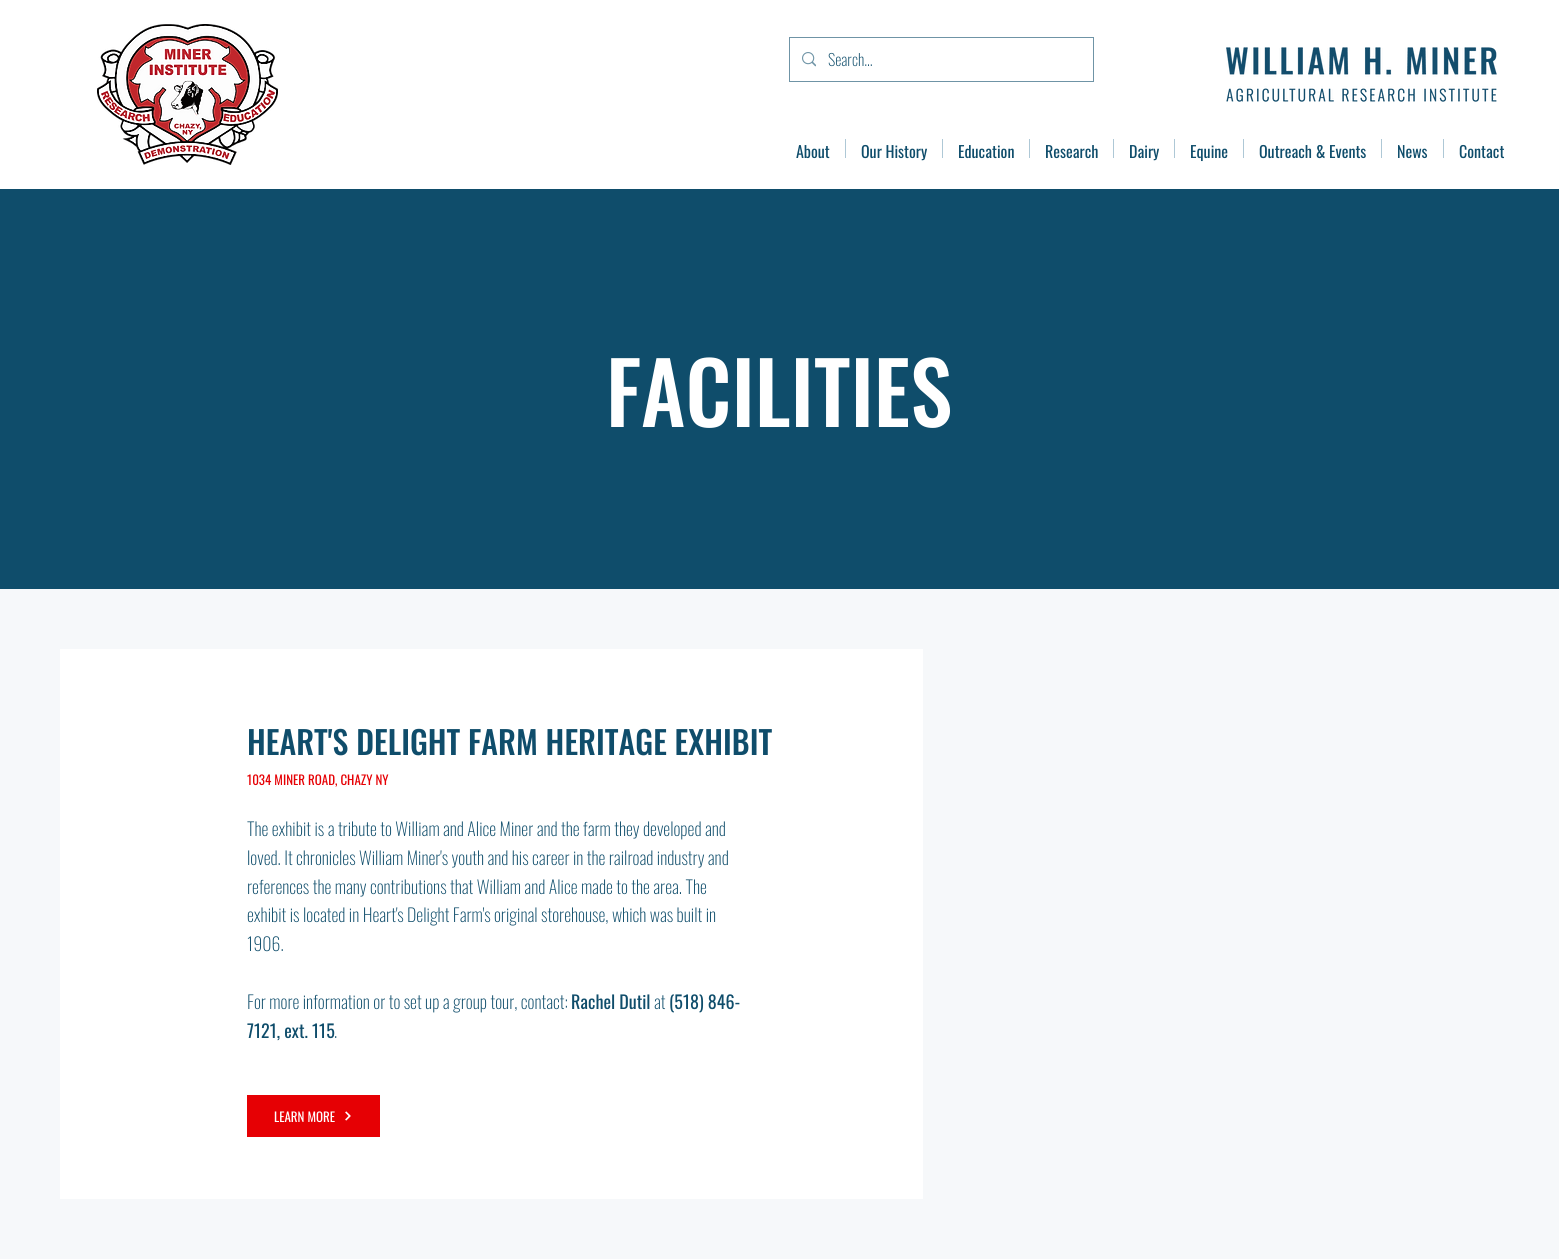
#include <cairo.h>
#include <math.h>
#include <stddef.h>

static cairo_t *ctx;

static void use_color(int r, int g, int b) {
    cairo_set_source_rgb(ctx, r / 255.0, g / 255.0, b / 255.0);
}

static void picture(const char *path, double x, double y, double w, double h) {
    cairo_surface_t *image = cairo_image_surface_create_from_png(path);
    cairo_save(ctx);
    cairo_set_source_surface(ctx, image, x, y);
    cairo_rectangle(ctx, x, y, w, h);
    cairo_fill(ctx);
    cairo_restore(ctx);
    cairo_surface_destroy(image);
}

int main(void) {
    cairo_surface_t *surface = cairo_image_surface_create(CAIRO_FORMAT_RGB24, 1559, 1259);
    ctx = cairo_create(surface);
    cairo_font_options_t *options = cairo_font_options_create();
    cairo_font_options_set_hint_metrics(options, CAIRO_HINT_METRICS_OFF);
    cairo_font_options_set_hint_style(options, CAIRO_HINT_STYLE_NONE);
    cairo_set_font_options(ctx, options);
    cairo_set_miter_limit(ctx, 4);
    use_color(255, 255, 255);
    cairo_paint(ctx);
    picture("img1.png", 97, 24, 181, 141);
    cairo_rectangle(ctx, 789.5, 37.5, 304, 44);
    use_color(111, 148, 166);
    cairo_set_line_width(ctx, 1);
    cairo_stroke(ctx);
    picture("img2.png", 802, 52, 14, 15);
    cairo_select_font_face(ctx, "Oswald ExtraLight", CAIRO_FONT_SLANT_NORMAL, CAIRO_FONT_WEIGHT_NORMAL);
    cairo_set_font_size(ctx, 16);
    use_color(15, 77, 107);
    cairo_move_to(ctx, 828, 66);
    cairo_show_text(ctx, "Search...");
    picture("img3.png", 1226, 47, 271, 55);
    cairo_select_font_face(ctx, "Oswald", CAIRO_FONT_SLANT_NORMAL, CAIRO_FONT_WEIGHT_NORMAL);
    cairo_move_to(ctx, 796, 158);
    cairo_show_text(ctx, "About");
    use_color(174, 200, 214);
    cairo_rectangle(ctx, 845, 139, 1, 19);
    cairo_fill(ctx);
    use_color(15, 77, 107);
    cairo_move_to(ctx, 861, 158);
    cairo_show_text(ctx, "Our History");
    use_color(174, 200, 214);
    cairo_rectangle(ctx, 942, 139, 1, 19);
    cairo_fill(ctx);
    use_color(15, 77, 107);
    cairo_move_to(ctx, 958, 158);
    cairo_show_text(ctx, "Education");
    use_color(174, 200, 214);
    cairo_rectangle(ctx, 1029, 139, 1, 19);
    cairo_fill(ctx);
    use_color(15, 77, 107);
    cairo_move_to(ctx, 1045, 158);
    cairo_show_text(ctx, "Research");
    use_color(174, 200, 214);
    cairo_rectangle(ctx, 1113, 139, 1, 19);
    cairo_fill(ctx);
    use_color(15, 77, 107);
    cairo_move_to(ctx, 1129, 158);
    cairo_show_text(ctx, "Dairy");
    use_color(174, 200, 214);
    cairo_rectangle(ctx, 1174, 139, 1, 19);
    cairo_fill(ctx);
    use_color(15, 77, 107);
    cairo_move_to(ctx, 1190, 158);
    cairo_show_text(ctx, "Equine");
    use_color(174, 200, 214);
    cairo_rectangle(ctx, 1243, 139, 1, 19);
    cairo_fill(ctx);
    use_color(15, 77, 107);
    cairo_move_to(ctx, 1259, 158);
    cairo_show_text(ctx, "Outreach & Events");
    use_color(174, 200, 214);
    cairo_rectangle(ctx, 1381, 139, 1, 19);
    cairo_fill(ctx);
    use_color(15, 77, 107);
    cairo_move_to(ctx, 1397, 158);
    cairo_show_text(ctx, "News");
    use_color(174, 200, 214);
    cairo_rectangle(ctx, 1443, 139, 1, 19);
    cairo_fill(ctx);
    use_color(15, 77, 107);
    cairo_move_to(ctx, 1459, 158);
    cairo_show_text(ctx, "Contact");
    cairo_rectangle(ctx, 0, 189, 1559, 400);
    cairo_fill(ctx);
    cairo_select_font_face(ctx, "Oswald Medium", CAIRO_FONT_SLANT_NORMAL, CAIRO_FONT_WEIGHT_NORMAL);
    cairo_set_font_size(ctx, 85);
    use_color(255, 255, 255);
    cairo_move_to(ctx, 606, 427);
    cairo_show_text(ctx, "FACILITIES");
    use_color(246, 248, 250);
    cairo_rectangle(ctx, 0, 589, 1559, 670);
    cairo_fill(ctx);
    use_color(255, 255, 255);
    cairo_rectangle(ctx, 60, 649, 863, 550);
    cairo_fill(ctx);
    cairo_set_font_size(ctx, 32);
    use_color(15, 77, 107);
    cairo_move_to(ctx, 247, 755);
    cairo_show_text(ctx, "HEART'S DELIGHT FARM HERITAGE EXHIBIT");
    cairo_select_font_face(ctx, "Oswald", CAIRO_FONT_SLANT_NORMAL, CAIRO_FONT_WEIGHT_NORMAL);
    cairo_set_font_size(ctx, 13);
    use_color(230, 0, 4);
    cairo_move_to(ctx, 247, 785);
    cairo_show_text(ctx, "1034 MINER ROAD, CHAZY NY");
    cairo_select_font_face(ctx, "Oswald ExtraLight", CAIRO_FONT_SLANT_NORMAL, CAIRO_FONT_WEIGHT_NORMAL);
    cairo_set_font_size(ctx, 18);
    use_color(15, 77, 107);
    cairo_move_to(ctx, 247, 836);
    cairo_show_text(ctx, "The exhibit is a tribute to William and Alice Miner and the farm they developed and");
    cairo_move_to(ctx, 247, 865);
    cairo_show_text(ctx, "loved. It chronicles William Miner's youth and his career in the railroad industry and");
    cairo_move_to(ctx, 247, 894);
    cairo_show_text(ctx, "references the many contributions that William and Alice made to the area. The");
    cairo_move_to(ctx, 247, 922);
    cairo_show_text(ctx, "exhibit is located in Heart's Delight Farm's original storehouse, which was built in");
    cairo_move_to(ctx, 247, 951);
    cairo_show_text(ctx, "1906.");
    cairo_move_to(ctx, 247, 1009);
    cairo_show_text(ctx, "For more information or to set up a group tour, contact:");
    cairo_select_font_face(ctx, "Oswald", CAIRO_FONT_SLANT_NORMAL, CAIRO_FONT_WEIGHT_NORMAL);
    cairo_move_to(ctx, 571, 1009);
    cairo_show_text(ctx, "Rachel Dutil");
    cairo_select_font_face(ctx, "Oswald ExtraLight", CAIRO_FONT_SLANT_NORMAL, CAIRO_FONT_WEIGHT_NORMAL);
    cairo_move_to(ctx, 654, 1009);
    cairo_show_text(ctx, "at");
    cairo_select_font_face(ctx, "Oswald", CAIRO_FONT_SLANT_NORMAL, CAIRO_FONT_WEIGHT_NORMAL);
    cairo_move_to(ctx, 669, 1009);
    cairo_show_text(ctx, "(518) 846-");
    cairo_move_to(ctx, 247, 1038);
    cairo_show_text(ctx, "7121, ext. 115");
    cairo_select_font_face(ctx, "Oswald ExtraLight", CAIRO_FONT_SLANT_NORMAL, CAIRO_FONT_WEIGHT_NORMAL);
    cairo_move_to(ctx, 334, 1038);
    cairo_show_text(ctx, ".");
    use_color(230, 0, 4);
    cairo_rectangle(ctx, 247, 1095, 133, 42);
    cairo_fill(ctx);
    cairo_select_font_face(ctx, "Oswald", CAIRO_FONT_SLANT_NORMAL, CAIRO_FONT_WEIGHT_NORMAL);
    cairo_set_font_size(ctx, 13);
    use_color(255, 255, 255);
    cairo_move_to(ctx, 274, 1122);
    cairo_show_text(ctx, "LEARN MORE");
    picture("img4.png", 345, 1111, 6, 10);
    cairo_surface_write_to_png(surface, "result.png");
    cairo_font_options_destroy(options);
    cairo_destroy(ctx);
    cairo_surface_destroy(surface);
    return 0;
}
